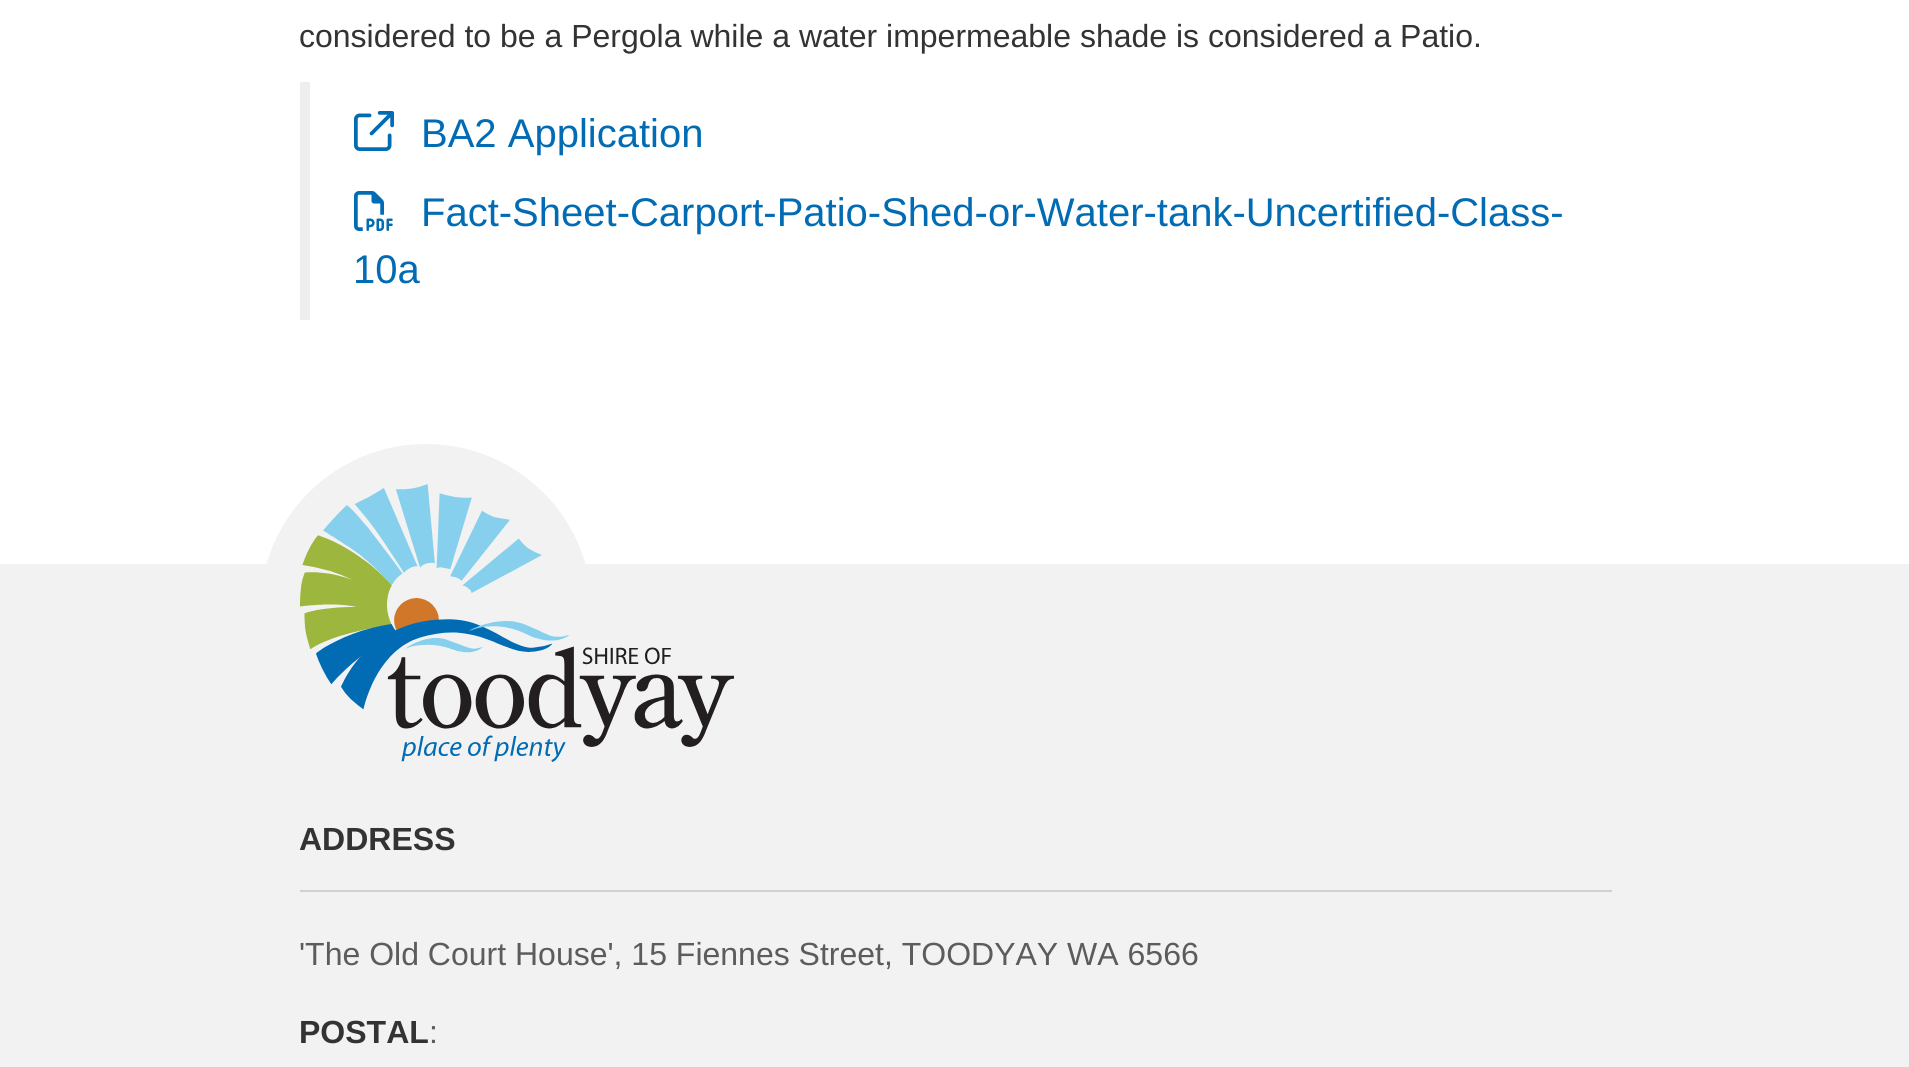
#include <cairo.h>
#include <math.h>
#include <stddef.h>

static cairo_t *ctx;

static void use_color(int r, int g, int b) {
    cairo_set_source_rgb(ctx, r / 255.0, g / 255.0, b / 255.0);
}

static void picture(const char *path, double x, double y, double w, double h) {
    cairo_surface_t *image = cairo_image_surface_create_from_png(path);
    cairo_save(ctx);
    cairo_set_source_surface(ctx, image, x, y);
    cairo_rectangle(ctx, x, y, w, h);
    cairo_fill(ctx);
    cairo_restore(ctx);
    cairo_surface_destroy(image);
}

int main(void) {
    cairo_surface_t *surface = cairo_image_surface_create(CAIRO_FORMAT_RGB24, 1909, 1067);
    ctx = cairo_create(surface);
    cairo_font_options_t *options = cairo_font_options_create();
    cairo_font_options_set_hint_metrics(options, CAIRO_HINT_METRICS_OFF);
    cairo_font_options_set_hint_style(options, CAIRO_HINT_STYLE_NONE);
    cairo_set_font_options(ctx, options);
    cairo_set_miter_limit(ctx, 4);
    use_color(255, 255, 255);
    cairo_paint(ctx);
    cairo_select_font_face(ctx, "Liberation Sans", CAIRO_FONT_SLANT_NORMAL, CAIRO_FONT_WEIGHT_NORMAL);
    cairo_set_font_size(ctx, 32);
    use_color(51, 51, 51);
    cairo_move_to(ctx, 299, 47);
    cairo_show_text(ctx, "considered to be a Pergola while a water impermeable shade is considered a Patio.");
    use_color(238, 238, 238);
    cairo_rectangle(ctx, 300, 82, 10, 238);
    cairo_fill(ctx);
    picture("img1.png", 354, 111, 40, 40);
    cairo_set_font_size(ctx, 40);
    use_color(1, 108, 180);
    cairo_move_to(ctx, 421, 147);
    cairo_show_text(ctx, "BA2 Application");
    picture("img2.png", 354, 191, 39, 40);
    cairo_move_to(ctx, 421, 226);
    cairo_show_text(ctx, "Fact-Sheet-Carport-Patio-Shed-or-Water-tank-Uncertified-Class-");
    cairo_move_to(ctx, 353, 283);
    cairo_show_text(ctx, "10a");
    use_color(242, 242, 242);
    cairo_rectangle(ctx, 0, 564, 1909, 503);
    cairo_fill(ctx);
    cairo_arc(ctx, 426, 610, 166, 0, 2 * M_PI);
    cairo_fill(ctx);
    picture("img3.png", 300, 484, 434, 278);
    use_color(208, 208, 208);
    cairo_rectangle(ctx, 300, 890, 1312, 2);
    cairo_fill(ctx);
    cairo_select_font_face(ctx, "Liberation Sans", CAIRO_FONT_SLANT_NORMAL, CAIRO_FONT_WEIGHT_BOLD);
    cairo_set_font_size(ctx, 32);
    use_color(51, 51, 51);
    cairo_move_to(ctx, 299, 850);
    cairo_show_text(ctx, "ADDRESS");
    cairo_select_font_face(ctx, "Liberation Sans", CAIRO_FONT_SLANT_NORMAL, CAIRO_FONT_WEIGHT_NORMAL);
    use_color(92, 92, 92);
    cairo_move_to(ctx, 299, 965);
    cairo_show_text(ctx, "'The Old Court House', 15 Fiennes Street, TOODYAY WA 6566");
    cairo_select_font_face(ctx, "Liberation Sans", CAIRO_FONT_SLANT_NORMAL, CAIRO_FONT_WEIGHT_BOLD);
    use_color(51, 51, 51);
    cairo_move_to(ctx, 299, 1043);
    cairo_show_text(ctx, "POSTAL");
    cairo_select_font_face(ctx, "Liberation Sans", CAIRO_FONT_SLANT_NORMAL, CAIRO_FONT_WEIGHT_NORMAL);
    use_color(92, 92, 92);
    cairo_move_to(ctx, 429, 1043);
    cairo_show_text(ctx, ":");
    cairo_surface_write_to_png(surface, "result.png");
    cairo_font_options_destroy(options);
    cairo_destroy(ctx);
    cairo_surface_destroy(surface);
    return 0;
}
